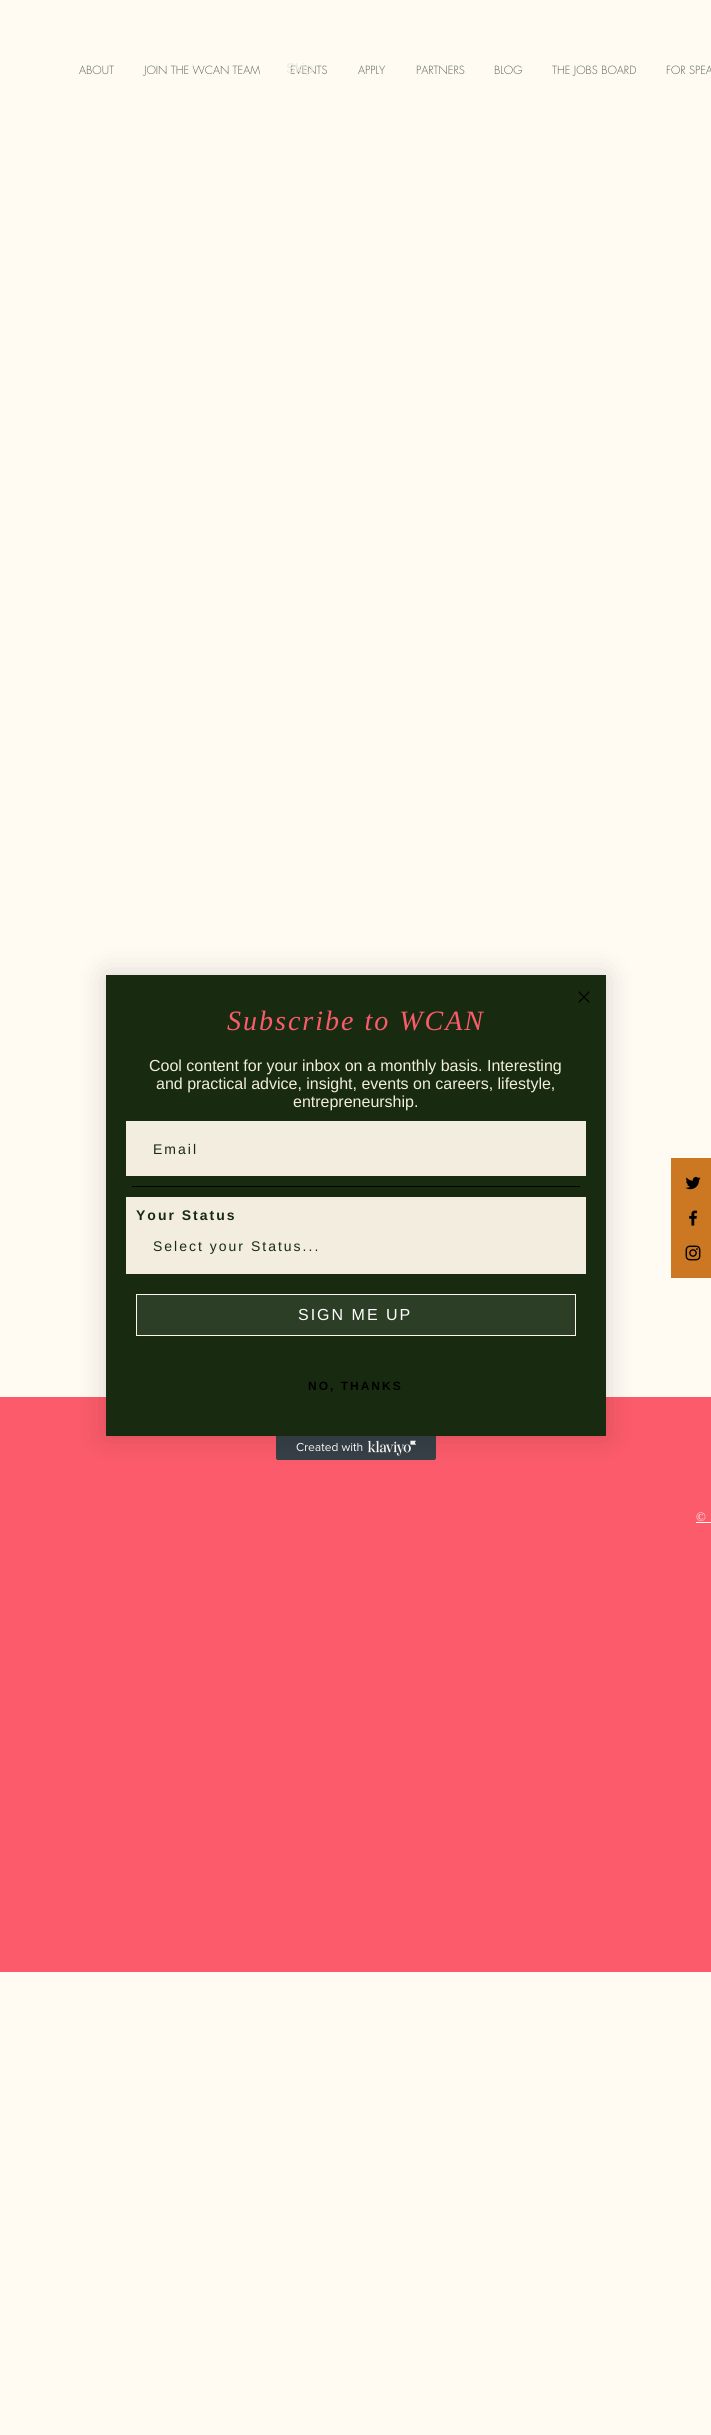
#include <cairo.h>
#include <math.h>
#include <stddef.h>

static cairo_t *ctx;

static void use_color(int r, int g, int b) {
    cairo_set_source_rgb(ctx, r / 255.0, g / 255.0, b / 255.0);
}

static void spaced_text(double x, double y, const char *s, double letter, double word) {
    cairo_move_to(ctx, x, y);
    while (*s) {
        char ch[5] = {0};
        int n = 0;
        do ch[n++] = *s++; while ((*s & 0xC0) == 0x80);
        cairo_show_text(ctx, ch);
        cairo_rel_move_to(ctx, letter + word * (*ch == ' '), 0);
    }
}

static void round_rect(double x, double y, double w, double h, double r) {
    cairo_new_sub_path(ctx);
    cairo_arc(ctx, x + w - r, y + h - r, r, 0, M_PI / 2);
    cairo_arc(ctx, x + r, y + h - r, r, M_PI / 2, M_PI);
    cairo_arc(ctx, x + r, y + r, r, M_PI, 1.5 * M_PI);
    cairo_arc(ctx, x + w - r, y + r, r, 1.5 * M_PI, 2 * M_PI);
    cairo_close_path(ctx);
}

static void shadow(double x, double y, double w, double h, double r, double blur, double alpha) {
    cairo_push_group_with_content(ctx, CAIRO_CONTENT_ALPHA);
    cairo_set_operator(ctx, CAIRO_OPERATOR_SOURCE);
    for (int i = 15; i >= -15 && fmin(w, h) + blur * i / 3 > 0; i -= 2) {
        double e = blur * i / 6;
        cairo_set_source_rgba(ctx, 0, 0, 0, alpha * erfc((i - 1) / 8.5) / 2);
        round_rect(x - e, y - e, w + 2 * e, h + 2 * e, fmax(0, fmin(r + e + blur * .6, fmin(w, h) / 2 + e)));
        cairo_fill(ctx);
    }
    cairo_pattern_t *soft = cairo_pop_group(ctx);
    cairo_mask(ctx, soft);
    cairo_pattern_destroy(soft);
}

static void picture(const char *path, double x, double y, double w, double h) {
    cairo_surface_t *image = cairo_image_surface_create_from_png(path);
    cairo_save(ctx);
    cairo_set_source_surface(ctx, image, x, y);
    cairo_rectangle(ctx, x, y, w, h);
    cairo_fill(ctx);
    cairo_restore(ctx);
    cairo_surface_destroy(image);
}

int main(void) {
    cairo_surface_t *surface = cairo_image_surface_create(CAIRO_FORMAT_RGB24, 711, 2435);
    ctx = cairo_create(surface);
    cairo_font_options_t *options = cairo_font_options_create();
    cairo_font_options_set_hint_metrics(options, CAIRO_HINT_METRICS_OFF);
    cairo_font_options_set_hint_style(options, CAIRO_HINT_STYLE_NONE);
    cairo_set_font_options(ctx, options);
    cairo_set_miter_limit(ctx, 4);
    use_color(255, 251, 243);
    cairo_paint(ctx);
    cairo_select_font_face(ctx, "futura Light", CAIRO_FONT_SLANT_NORMAL, CAIRO_FONT_WEIGHT_NORMAL);
    cairo_set_font_size(ctx, 11);
    use_color(82, 95, 74);
    cairo_move_to(ctx, 290, 74);
    cairo_show_text(ctx, "EVENTS");
    cairo_select_font_face(ctx, "Liberation Sans", CAIRO_FONT_SLANT_NORMAL, CAIRO_FONT_WEIGHT_NORMAL);
    cairo_set_font_size(ctx, 14);
    use_color(235, 233, 223);
    cairo_move_to(ctx, 286, 73);
    cairo_show_text(ctx, "Skip");
    cairo_select_font_face(ctx, "futura Light", CAIRO_FONT_SLANT_NORMAL, CAIRO_FONT_WEIGHT_NORMAL);
    cairo_set_font_size(ctx, 11);
    use_color(82, 95, 74);
    cairo_move_to(ctx, 79, 74);
    cairo_show_text(ctx, "ABOUT");
    cairo_move_to(ctx, 144, 74);
    cairo_show_text(ctx, "JOIN THE WCAN TEAM");
    cairo_move_to(ctx, 358, 74);
    cairo_show_text(ctx, "APPLY");
    cairo_move_to(ctx, 416, 74);
    cairo_show_text(ctx, "PARTNERS");
    cairo_move_to(ctx, 494, 74);
    cairo_show_text(ctx, "BLOG");
    cairo_move_to(ctx, 552, 74);
    cairo_show_text(ctx, "THE JOBS BOARD");
    cairo_move_to(ctx, 666, 74);
    cairo_show_text(ctx, "FOR SPEA");
    use_color(204, 119, 34);
    cairo_rectangle(ctx, 671, 1158, 40, 120);
    cairo_fill(ctx);
    picture("img1.png", 685, 1176, 16, 14);
    picture("img2.png", 689, 1210, 9, 16);
    picture("img3.png", 685, 1245, 16, 16);
    use_color(251, 91, 106);
    cairo_rectangle(ctx, 0, 1397, 711, 575);
    cairo_fill(ctx);
    cairo_select_font_face(ctx, "Liberation Serif", CAIRO_FONT_SLANT_NORMAL, CAIRO_FONT_WEIGHT_NORMAL);
    cairo_set_font_size(ctx, 13);
    use_color(255, 251, 243);
    spaced_text(696, 1521, "©", 1, 0);
    cairo_rectangle(ctx, 696, 1522, 15, 1);
    cairo_fill(ctx);
    picture("img5.png", 276, 1436, 160, 24);
    use_color(0, 0, 0);
    shadow(106, 975, 500, 461, 0, 15, 0.15);
    use_color(24, 43, 17);
    cairo_rectangle(ctx, 106, 975, 500, 461);
    cairo_fill(ctx);
    cairo_new_path(ctx);
    cairo_move_to(ctx, 579, 992);
    cairo_line_to(ctx, 589, 1002);
    cairo_move_to(ctx, 579, 1002);
    cairo_line_to(ctx, 589, 992);
    cairo_close_path(ctx);
    use_color(0, 0, 0);
    cairo_set_line_width(ctx, 1.2);
    cairo_set_line_cap(ctx, CAIRO_LINE_CAP_ROUND);
    cairo_set_line_join(ctx, CAIRO_LINE_JOIN_ROUND);
    cairo_stroke(ctx);
    cairo_select_font_face(ctx, "Liberation Serif", CAIRO_FONT_SLANT_ITALIC, CAIRO_FONT_WEIGHT_NORMAL);
    cairo_set_font_size(ctx, 28);
    use_color(251, 91, 106);
    spaced_text(227, 1030, "Subscribe to WCAN", 2, 0);
    cairo_select_font_face(ctx, "Liberation Sans", CAIRO_FONT_SLANT_NORMAL, CAIRO_FONT_WEIGHT_NORMAL);
    cairo_set_font_size(ctx, 16);
    use_color(243, 237, 224);
    cairo_move_to(ctx, 149, 1071);
    cairo_show_text(ctx, "Cool content for your inbox on a monthly basis. Interesting");
    cairo_move_to(ctx, 156, 1089);
    cairo_show_text(ctx, "and practical advice, insight, events on careers, lifestyle,");
    cairo_move_to(ctx, 293, 1107);
    cairo_show_text(ctx, "entrepreneurship.");
    cairo_rectangle(ctx, 126, 1121, 460, 55);
    cairo_fill(ctx);
    cairo_set_font_size(ctx, 14);
    use_color(24, 43, 17);
    spaced_text(153, 1154, "Email", 2, 0);
    picture("img4.png", 132, 1186, 448, 1);
    use_color(243, 237, 224);
    cairo_rectangle(ctx, 126, 1197, 460, 77);
    cairo_fill(ctx);
    cairo_select_font_face(ctx, "Liberation Sans", CAIRO_FONT_SLANT_NORMAL, CAIRO_FONT_WEIGHT_BOLD);
    use_color(24, 43, 17);
    spaced_text(136, 1220, "Your Status", 2, 0);
    cairo_select_font_face(ctx, "Liberation Sans", CAIRO_FONT_SLANT_NORMAL, CAIRO_FONT_WEIGHT_NORMAL);
    spaced_text(153, 1251, "Select your Status...", 2, 0);
    use_color(45, 62, 38);
    cairo_rectangle(ctx, 136.5, 1294.5, 439, 41);
    cairo_fill_preserve(ctx);
    use_color(255, 245, 240);
    cairo_set_line_width(ctx, 1);
    cairo_set_line_cap(ctx, CAIRO_LINE_CAP_BUTT);
    cairo_set_line_join(ctx, CAIRO_LINE_JOIN_MITER);
    cairo_stroke(ctx);
    cairo_set_font_size(ctx, 16);
    use_color(255, 255, 255);
    spaced_text(298, 1320, "SIGN ME UP", 2, 0);
    cairo_select_font_face(ctx, "Liberation Sans", CAIRO_FONT_SLANT_NORMAL, CAIRO_FONT_WEIGHT_BOLD);
    cairo_set_font_size(ctx, 12);
    use_color(0, 0, 0);
    spaced_text(308, 1390, "NO, THANKS", 2, 0);
    cairo_surface_write_to_png(surface, "result.png");
    cairo_font_options_destroy(options);
    cairo_destroy(ctx);
    cairo_surface_destroy(surface);
    return 0;
}
